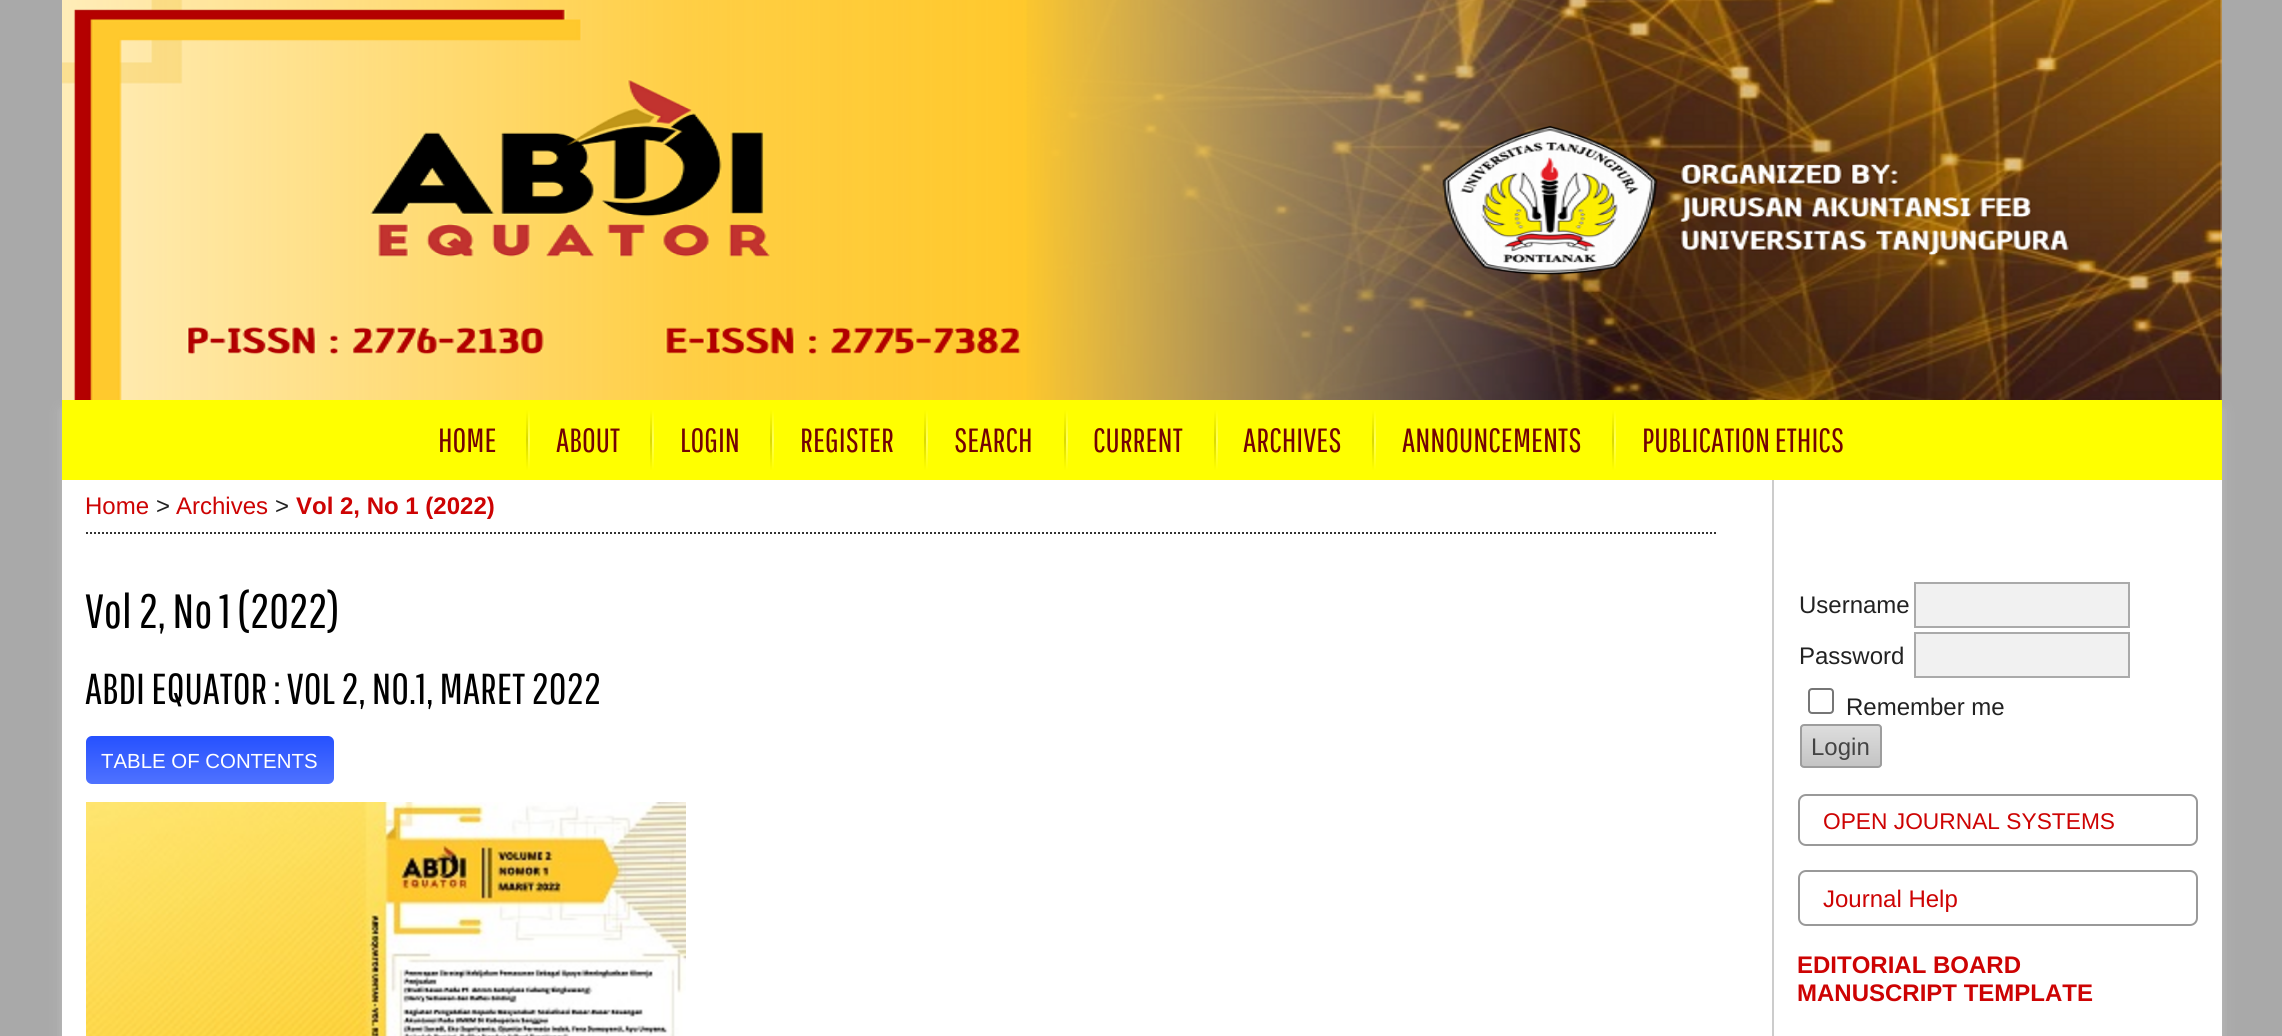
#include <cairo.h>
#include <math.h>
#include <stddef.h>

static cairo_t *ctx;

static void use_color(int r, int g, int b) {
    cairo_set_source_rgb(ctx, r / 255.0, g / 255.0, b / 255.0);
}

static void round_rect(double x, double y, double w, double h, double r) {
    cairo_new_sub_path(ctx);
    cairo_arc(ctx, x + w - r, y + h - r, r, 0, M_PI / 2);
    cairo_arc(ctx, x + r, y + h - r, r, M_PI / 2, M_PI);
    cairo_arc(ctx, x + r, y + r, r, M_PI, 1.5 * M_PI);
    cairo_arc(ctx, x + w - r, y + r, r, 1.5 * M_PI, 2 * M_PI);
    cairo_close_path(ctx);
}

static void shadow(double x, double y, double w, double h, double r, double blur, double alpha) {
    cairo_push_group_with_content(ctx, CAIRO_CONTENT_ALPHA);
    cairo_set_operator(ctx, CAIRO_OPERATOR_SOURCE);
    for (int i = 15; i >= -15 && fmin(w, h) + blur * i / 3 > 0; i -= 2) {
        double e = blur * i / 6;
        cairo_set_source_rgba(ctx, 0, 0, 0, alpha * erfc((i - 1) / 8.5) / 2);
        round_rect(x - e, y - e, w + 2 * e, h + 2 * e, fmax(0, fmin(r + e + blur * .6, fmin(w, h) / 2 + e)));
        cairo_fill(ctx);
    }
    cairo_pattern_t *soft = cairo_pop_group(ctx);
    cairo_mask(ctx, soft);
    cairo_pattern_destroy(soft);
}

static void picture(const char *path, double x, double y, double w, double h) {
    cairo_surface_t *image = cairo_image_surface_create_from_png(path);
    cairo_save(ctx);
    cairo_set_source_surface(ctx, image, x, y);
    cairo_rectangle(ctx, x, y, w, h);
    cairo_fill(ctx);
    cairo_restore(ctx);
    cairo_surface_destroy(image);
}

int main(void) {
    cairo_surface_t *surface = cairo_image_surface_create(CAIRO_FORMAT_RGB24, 2282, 1036);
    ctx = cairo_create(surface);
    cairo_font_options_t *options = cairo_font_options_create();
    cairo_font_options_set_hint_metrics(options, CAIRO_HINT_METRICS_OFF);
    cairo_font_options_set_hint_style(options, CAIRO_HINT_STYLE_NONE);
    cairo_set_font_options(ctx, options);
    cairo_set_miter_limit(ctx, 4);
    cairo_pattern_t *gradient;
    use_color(169, 169, 169);
    cairo_paint(ctx);
    use_color(187, 187, 187);
    shadow(62, 410, 2160, 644, 0, 6, 1);
    picture("img1.png", 62, 0, 2160, 400);
    use_color(255, 255, 255);
    cairo_rectangle(ctx, 62, 480, 2160, 556);
    cairo_fill(ctx);
    use_color(255, 255, 0);
    cairo_rectangle(ctx, 62, 400, 2160, 80);
    cairo_fill(ctx);
    cairo_select_font_face(ctx, "Pathway Gothic One", CAIRO_FONT_SLANT_NORMAL, CAIRO_FONT_WEIGHT_NORMAL);
    cairo_set_font_size(ctx, 33.5);
    use_color(115, 3, 3);
    cairo_move_to(ctx, 438, 452);
    cairo_show_text(ctx, "HOME");
    gradient = cairo_pattern_create_linear(527, 410, 527, 470);
    cairo_pattern_add_color_stop_rgba(gradient, 0, 1, 1, 0, 1);
    cairo_pattern_add_color_stop_rgba(gradient, 0.5, 0.851, 0.851, 0, 1);
    cairo_pattern_add_color_stop_rgba(gradient, 1, 1, 1, 0, 1);
    cairo_set_source(ctx, gradient);
    cairo_pattern_destroy(gradient);
    cairo_rectangle(ctx, 526, 410, 2, 60);
    cairo_fill(ctx);
    gradient = cairo_pattern_create_linear(529, 410, 529, 470);
    cairo_pattern_add_color_stop_rgba(gradient, 0, 1, 1, 0, 1);
    cairo_pattern_add_color_stop_rgba(gradient, 0.5, 1, 1, 0.349, 1);
    cairo_pattern_add_color_stop_rgba(gradient, 1, 1, 1, 0, 1);
    cairo_set_source(ctx, gradient);
    cairo_pattern_destroy(gradient);
    cairo_rectangle(ctx, 528, 410, 2, 60);
    cairo_fill(ctx);
    use_color(115, 3, 3);
    cairo_move_to(ctx, 556, 452);
    cairo_show_text(ctx, "ABOUT");
    gradient = cairo_pattern_create_linear(651, 410, 651, 470);
    cairo_pattern_add_color_stop_rgba(gradient, 0, 1, 1, 0, 1);
    cairo_pattern_add_color_stop_rgba(gradient, 0.5, 0.851, 0.851, 0, 1);
    cairo_pattern_add_color_stop_rgba(gradient, 1, 1, 1, 0, 1);
    cairo_set_source(ctx, gradient);
    cairo_pattern_destroy(gradient);
    cairo_rectangle(ctx, 650, 410, 2, 60);
    cairo_fill(ctx);
    gradient = cairo_pattern_create_linear(653, 410, 653, 470);
    cairo_pattern_add_color_stop_rgba(gradient, 0, 1, 1, 0, 1);
    cairo_pattern_add_color_stop_rgba(gradient, 0.5, 1, 1, 0.349, 1);
    cairo_pattern_add_color_stop_rgba(gradient, 1, 1, 1, 0, 1);
    cairo_set_source(ctx, gradient);
    cairo_pattern_destroy(gradient);
    cairo_rectangle(ctx, 652, 410, 2, 60);
    cairo_fill(ctx);
    use_color(115, 3, 3);
    cairo_move_to(ctx, 680, 452);
    cairo_show_text(ctx, "LOGIN");
    gradient = cairo_pattern_create_linear(771, 410, 771, 470);
    cairo_pattern_add_color_stop_rgba(gradient, 0, 1, 1, 0, 1);
    cairo_pattern_add_color_stop_rgba(gradient, 0.5, 0.851, 0.851, 0, 1);
    cairo_pattern_add_color_stop_rgba(gradient, 1, 1, 1, 0, 1);
    cairo_set_source(ctx, gradient);
    cairo_pattern_destroy(gradient);
    cairo_rectangle(ctx, 770, 410, 2, 60);
    cairo_fill(ctx);
    gradient = cairo_pattern_create_linear(773, 410, 773, 470);
    cairo_pattern_add_color_stop_rgba(gradient, 0, 1, 1, 0, 1);
    cairo_pattern_add_color_stop_rgba(gradient, 0.5, 1, 1, 0.349, 1);
    cairo_pattern_add_color_stop_rgba(gradient, 1, 1, 1, 0, 1);
    cairo_set_source(ctx, gradient);
    cairo_pattern_destroy(gradient);
    cairo_rectangle(ctx, 772, 410, 2, 60);
    cairo_fill(ctx);
    use_color(115, 3, 3);
    cairo_move_to(ctx, 800, 452);
    cairo_show_text(ctx, "REGISTER");
    gradient = cairo_pattern_create_linear(925, 410, 925, 470);
    cairo_pattern_add_color_stop_rgba(gradient, 0, 1, 1, 0, 1);
    cairo_pattern_add_color_stop_rgba(gradient, 0.5, 0.851, 0.851, 0, 1);
    cairo_pattern_add_color_stop_rgba(gradient, 1, 1, 1, 0, 1);
    cairo_set_source(ctx, gradient);
    cairo_pattern_destroy(gradient);
    cairo_rectangle(ctx, 924, 410, 2, 60);
    cairo_fill(ctx);
    gradient = cairo_pattern_create_linear(927, 410, 927, 470);
    cairo_pattern_add_color_stop_rgba(gradient, 0, 1, 1, 0, 1);
    cairo_pattern_add_color_stop_rgba(gradient, 0.5, 1, 1, 0.349, 1);
    cairo_pattern_add_color_stop_rgba(gradient, 1, 1, 1, 0, 1);
    cairo_set_source(ctx, gradient);
    cairo_pattern_destroy(gradient);
    cairo_rectangle(ctx, 926, 410, 2, 60);
    cairo_fill(ctx);
    use_color(115, 3, 3);
    cairo_move_to(ctx, 954, 452);
    cairo_show_text(ctx, "SEARCH");
    gradient = cairo_pattern_create_linear(1065, 410, 1065, 470);
    cairo_pattern_add_color_stop_rgba(gradient, 0, 1, 1, 0, 1);
    cairo_pattern_add_color_stop_rgba(gradient, 0.5, 0.851, 0.851, 0, 1);
    cairo_pattern_add_color_stop_rgba(gradient, 1, 1, 1, 0, 1);
    cairo_set_source(ctx, gradient);
    cairo_pattern_destroy(gradient);
    cairo_rectangle(ctx, 1064, 410, 2, 60);
    cairo_fill(ctx);
    gradient = cairo_pattern_create_linear(1067, 410, 1067, 470);
    cairo_pattern_add_color_stop_rgba(gradient, 0, 1, 1, 0, 1);
    cairo_pattern_add_color_stop_rgba(gradient, 0.5, 1, 1, 0.349, 1);
    cairo_pattern_add_color_stop_rgba(gradient, 1, 1, 1, 0, 1);
    cairo_set_source(ctx, gradient);
    cairo_pattern_destroy(gradient);
    cairo_rectangle(ctx, 1066, 410, 2, 60);
    cairo_fill(ctx);
    use_color(115, 3, 3);
    cairo_move_to(ctx, 1093, 452);
    cairo_show_text(ctx, "CURRENT");
    gradient = cairo_pattern_create_linear(1215, 410, 1215, 470);
    cairo_pattern_add_color_stop_rgba(gradient, 0, 1, 1, 0, 1);
    cairo_pattern_add_color_stop_rgba(gradient, 0.5, 0.851, 0.851, 0, 1);
    cairo_pattern_add_color_stop_rgba(gradient, 1, 1, 1, 0, 1);
    cairo_set_source(ctx, gradient);
    cairo_pattern_destroy(gradient);
    cairo_rectangle(ctx, 1214, 410, 2, 60);
    cairo_fill(ctx);
    gradient = cairo_pattern_create_linear(1217, 410, 1217, 470);
    cairo_pattern_add_color_stop_rgba(gradient, 0, 1, 1, 0, 1);
    cairo_pattern_add_color_stop_rgba(gradient, 0.5, 1, 1, 0.349, 1);
    cairo_pattern_add_color_stop_rgba(gradient, 1, 1, 1, 0, 1);
    cairo_set_source(ctx, gradient);
    cairo_pattern_destroy(gradient);
    cairo_rectangle(ctx, 1216, 410, 2, 60);
    cairo_fill(ctx);
    use_color(115, 3, 3);
    cairo_move_to(ctx, 1243, 452);
    cairo_show_text(ctx, "ARCHIVES");
    gradient = cairo_pattern_create_linear(1373, 410, 1373, 470);
    cairo_pattern_add_color_stop_rgba(gradient, 0, 1, 1, 0, 1);
    cairo_pattern_add_color_stop_rgba(gradient, 0.5, 0.851, 0.851, 0, 1);
    cairo_pattern_add_color_stop_rgba(gradient, 1, 1, 1, 0, 1);
    cairo_set_source(ctx, gradient);
    cairo_pattern_destroy(gradient);
    cairo_rectangle(ctx, 1372, 410, 2, 60);
    cairo_fill(ctx);
    gradient = cairo_pattern_create_linear(1375, 410, 1375, 470);
    cairo_pattern_add_color_stop_rgba(gradient, 0, 1, 1, 0, 1);
    cairo_pattern_add_color_stop_rgba(gradient, 0.5, 1, 1, 0.349, 1);
    cairo_pattern_add_color_stop_rgba(gradient, 1, 1, 1, 0, 1);
    cairo_set_source(ctx, gradient);
    cairo_pattern_destroy(gradient);
    cairo_rectangle(ctx, 1374, 410, 2, 60);
    cairo_fill(ctx);
    use_color(115, 3, 3);
    cairo_move_to(ctx, 1402, 452);
    cairo_show_text(ctx, "ANNOUNCEMENTS");
    gradient = cairo_pattern_create_linear(1613, 410, 1613, 470);
    cairo_pattern_add_color_stop_rgba(gradient, 0, 1, 1, 0, 1);
    cairo_pattern_add_color_stop_rgba(gradient, 0.5, 0.851, 0.851, 0, 1);
    cairo_pattern_add_color_stop_rgba(gradient, 1, 1, 1, 0, 1);
    cairo_set_source(ctx, gradient);
    cairo_pattern_destroy(gradient);
    cairo_rectangle(ctx, 1612, 410, 2, 60);
    cairo_fill(ctx);
    gradient = cairo_pattern_create_linear(1615, 410, 1615, 470);
    cairo_pattern_add_color_stop_rgba(gradient, 0, 1, 1, 0, 1);
    cairo_pattern_add_color_stop_rgba(gradient, 0.5, 1, 1, 0.349, 1);
    cairo_pattern_add_color_stop_rgba(gradient, 1, 1, 1, 0, 1);
    cairo_set_source(ctx, gradient);
    cairo_pattern_destroy(gradient);
    cairo_rectangle(ctx, 1614, 410, 2, 60);
    cairo_fill(ctx);
    use_color(115, 3, 3);
    cairo_move_to(ctx, 1642, 452);
    cairo_show_text(ctx, "PUBLICATION ETHICS");
    cairo_new_path(ctx);
    cairo_move_to(ctx, 86, 533);
    cairo_line_to(ctx, 1718, 533);
    use_color(51, 51, 51);
    cairo_set_dash(ctx, (double[]){2, 2}, 2, 0);
    cairo_stroke(ctx);
    cairo_select_font_face(ctx, "Liberation Sans", CAIRO_FONT_SLANT_NORMAL, CAIRO_FONT_WEIGHT_NORMAL);
    cairo_set_font_size(ctx, 24);
    use_color(205, 3, 3);
    cairo_move_to(ctx, 85, 514);
    cairo_show_text(ctx, "Home");
    use_color(34, 34, 34);
    cairo_move_to(ctx, 156, 514);
    cairo_show_text(ctx, ">");
    use_color(205, 3, 3);
    cairo_move_to(ctx, 176, 514);
    cairo_show_text(ctx, "Archives");
    use_color(34, 34, 34);
    cairo_move_to(ctx, 275, 514);
    cairo_show_text(ctx, ">");
    cairo_select_font_face(ctx, "Liberation Sans", CAIRO_FONT_SLANT_NORMAL, CAIRO_FONT_WEIGHT_BOLD);
    use_color(205, 3, 3);
    cairo_move_to(ctx, 296, 514);
    cairo_show_text(ctx, "Vol 2, No 1 (2022)");
    cairo_select_font_face(ctx, "Pathway Gothic One", CAIRO_FONT_SLANT_NORMAL, CAIRO_FONT_WEIGHT_NORMAL);
    cairo_set_font_size(ctx, 48);
    use_color(0, 0, 0);
    cairo_move_to(ctx, 85, 628);
    cairo_show_text(ctx, "Vol 2, No 1 (2022)");
    cairo_set_font_size(ctx, 43.25);
    cairo_move_to(ctx, 85, 704);
    cairo_show_text(ctx, "ABDI EQUATOR : VOL 2, NO.1, MARET 2022");
    gradient = cairo_pattern_create_linear(210, 736, 210, 784);
    cairo_pattern_add_color_stop_rgba(gradient, 0, 0.149, 0.318, 1, 1);
    cairo_pattern_add_color_stop_rgba(gradient, 1, 0.31, 0.447, 1, 1);
    cairo_set_source(ctx, gradient);
    cairo_pattern_destroy(gradient);
    round_rect(86, 736, 248, 48, 6);
    cairo_fill(ctx);
    cairo_select_font_face(ctx, "Liberation Sans", CAIRO_FONT_SLANT_NORMAL, CAIRO_FONT_WEIGHT_NORMAL);
    cairo_set_font_size(ctx, 20.4);
    use_color(255, 255, 255);
    cairo_move_to(ctx, 101, 768);
    cairo_show_text(ctx, "TABLE OF CONTENTS");
    picture("img2.png", 86, 802, 600, 234);
    use_color(204, 204, 204);
    cairo_rectangle(ctx, 1772, 480, 2, 556);
    cairo_fill(ctx);
    cairo_set_font_size(ctx, 24);
    use_color(34, 34, 34);
    cairo_move_to(ctx, 1799, 613);
    cairo_show_text(ctx, "Username");
    use_color(241, 241, 241);
    cairo_rectangle(ctx, 1915, 583, 214, 44);
    cairo_fill_preserve(ctx);
    use_color(170, 170, 170);
    cairo_set_dash(ctx, NULL, 0, 0);
    cairo_stroke(ctx);
    use_color(34, 34, 34);
    cairo_move_to(ctx, 1799, 664);
    cairo_show_text(ctx, "Password");
    use_color(241, 241, 241);
    cairo_rectangle(ctx, 1915, 633, 214, 44);
    cairo_fill_preserve(ctx);
    use_color(170, 170, 170);
    cairo_stroke(ctx);
    round_rect(1809, 689, 24, 24, 3);
    use_color(118, 118, 118);
    cairo_stroke(ctx);
    use_color(34, 34, 34);
    cairo_move_to(ctx, 1846, 715);
    cairo_show_text(ctx, "Remember me");
    cairo_save(ctx);
    round_rect(1800, 724, 82, 44, 4);
    cairo_clip(ctx);
    gradient = cairo_pattern_create_linear(1841, 726, 1841, 766);
    cairo_pattern_add_color_stop_rgba(gradient, 0, 0.867, 0.867, 0.867, 1);
    cairo_pattern_add_color_stop_rgba(gradient, 1, 0.769, 0.769, 0.769, 1);
    cairo_set_source(ctx, gradient);
    cairo_pattern_destroy(gradient);
    cairo_rectangle(ctx, 1800, 726, 82, 40);
    cairo_fill(ctx);
    cairo_restore(ctx);
    round_rect(1801, 725, 80, 42, 3);
    use_color(157, 157, 157);
    cairo_stroke(ctx);
    use_color(68, 68, 68);
    cairo_move_to(ctx, 1811, 755);
    cairo_show_text(ctx, "Login");
    round_rect(1799, 795, 398, 50, 7);
    use_color(153, 153, 153);
    cairo_stroke(ctx);
    cairo_set_font_size(ctx, 22.75);
    use_color(205, 3, 3);
    cairo_move_to(ctx, 1823, 829);
    cairo_show_text(ctx, "OPEN JOURNAL SYSTEMS");
    round_rect(1799, 871, 398, 54, 7);
    use_color(153, 153, 153);
    cairo_stroke(ctx);
    cairo_set_font_size(ctx, 24);
    use_color(205, 3, 3);
    cairo_move_to(ctx, 1823, 907);
    cairo_show_text(ctx, "Journal Help");
    cairo_select_font_face(ctx, "Liberation Sans", CAIRO_FONT_SLANT_NORMAL, CAIRO_FONT_WEIGHT_BOLD);
    cairo_move_to(ctx, 1797, 973);
    cairo_show_text(ctx, "EDITORIAL BOARD");
    cairo_move_to(ctx, 1797, 1001);
    cairo_show_text(ctx, "MANUSCRIPT TEMPLATE");
    cairo_surface_write_to_png(surface, "result.png");
    cairo_font_options_destroy(options);
    cairo_destroy(ctx);
    cairo_surface_destroy(surface);
    return 0;
}
